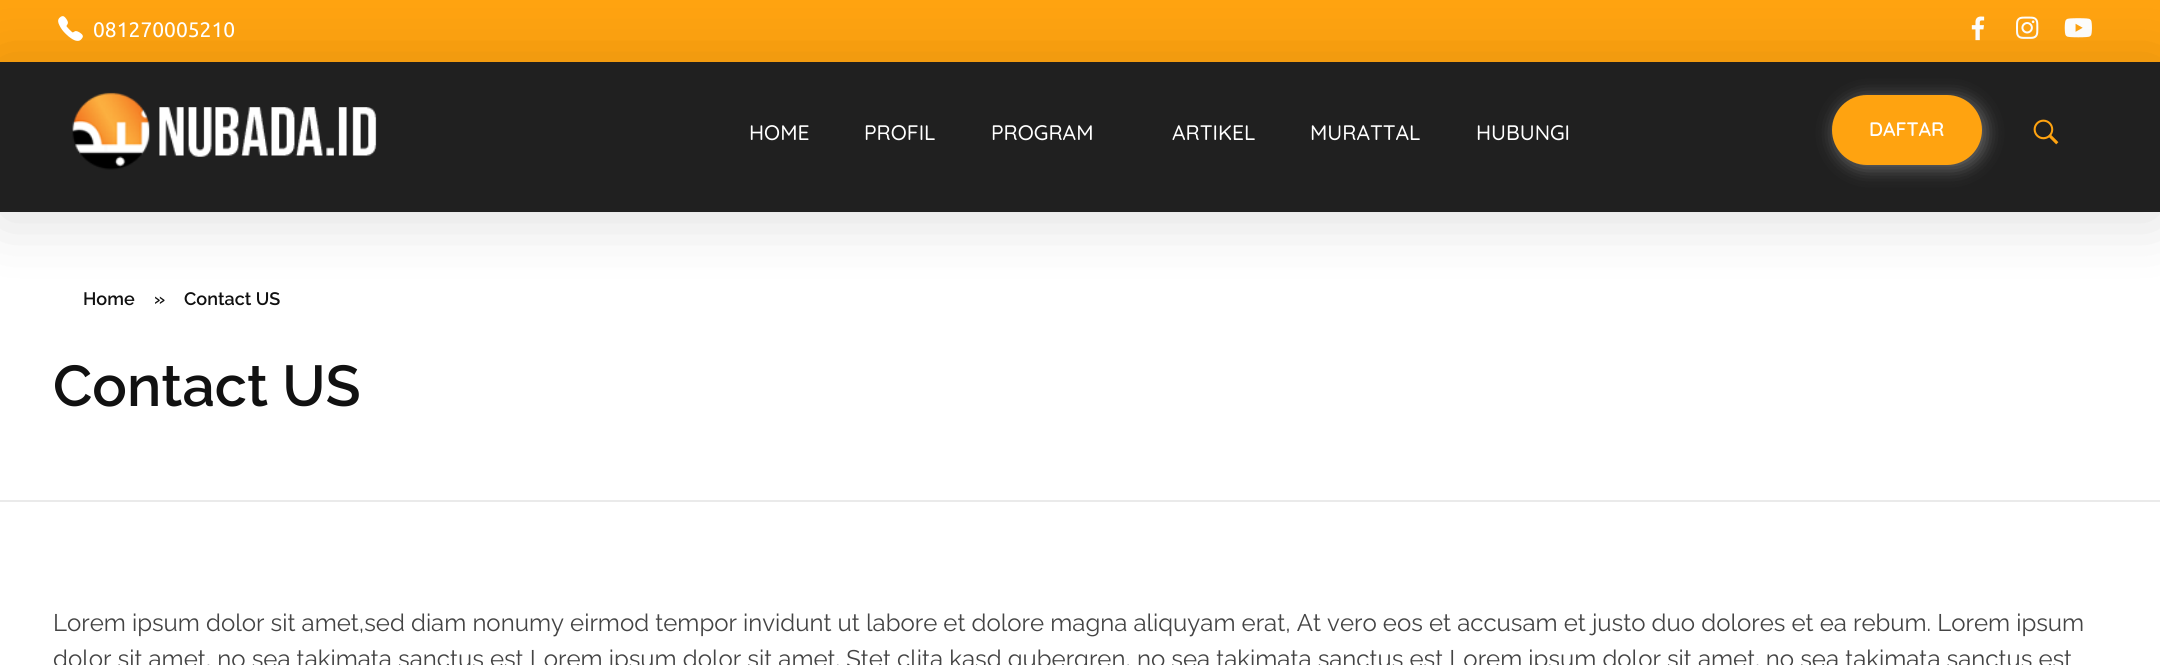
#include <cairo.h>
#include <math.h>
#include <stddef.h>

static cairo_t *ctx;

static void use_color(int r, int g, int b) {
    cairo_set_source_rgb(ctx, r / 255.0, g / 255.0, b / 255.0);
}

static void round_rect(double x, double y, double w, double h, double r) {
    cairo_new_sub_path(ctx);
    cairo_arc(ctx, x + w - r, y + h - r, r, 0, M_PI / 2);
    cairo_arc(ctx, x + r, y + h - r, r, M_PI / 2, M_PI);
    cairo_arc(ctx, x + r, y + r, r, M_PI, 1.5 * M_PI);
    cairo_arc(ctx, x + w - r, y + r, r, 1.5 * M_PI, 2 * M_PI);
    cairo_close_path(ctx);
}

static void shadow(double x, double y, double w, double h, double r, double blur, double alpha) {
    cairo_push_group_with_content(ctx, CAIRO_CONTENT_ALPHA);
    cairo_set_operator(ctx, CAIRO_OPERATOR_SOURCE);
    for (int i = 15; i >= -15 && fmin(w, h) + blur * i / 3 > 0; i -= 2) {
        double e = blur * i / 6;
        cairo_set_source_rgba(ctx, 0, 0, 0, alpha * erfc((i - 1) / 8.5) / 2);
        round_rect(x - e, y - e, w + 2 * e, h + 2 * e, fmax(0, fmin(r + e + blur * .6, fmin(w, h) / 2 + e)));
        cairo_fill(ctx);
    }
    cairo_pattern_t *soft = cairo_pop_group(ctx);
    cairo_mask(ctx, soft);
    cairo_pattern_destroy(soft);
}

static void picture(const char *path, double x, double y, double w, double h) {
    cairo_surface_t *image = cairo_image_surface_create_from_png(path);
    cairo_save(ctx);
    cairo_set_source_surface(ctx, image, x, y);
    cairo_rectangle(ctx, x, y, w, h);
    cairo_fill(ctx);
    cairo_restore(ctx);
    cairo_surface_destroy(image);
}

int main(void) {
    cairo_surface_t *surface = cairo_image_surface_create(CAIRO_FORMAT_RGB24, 2160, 665);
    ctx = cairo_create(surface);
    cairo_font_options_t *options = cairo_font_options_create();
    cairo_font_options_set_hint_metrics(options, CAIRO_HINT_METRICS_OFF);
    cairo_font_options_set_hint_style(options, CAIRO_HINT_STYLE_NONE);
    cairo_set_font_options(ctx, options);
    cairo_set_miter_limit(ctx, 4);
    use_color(255, 255, 255);
    cairo_paint(ctx);
    use_color(255, 163, 16);
    cairo_rectangle(ctx, 0, 0, 2160, 62);
    cairo_fill(ctx);
    picture("img2.png", 1971, 16, 14, 25);
    picture("img3.png", 2016, 16, 23, 23);
    picture("img4.png", 2064, 18, 28, 20);
    use_color(0, 0, 0);
    shadow(0, 68, 2160, 150, 0, 33, 0.14);
    picture("img1.png", 58, 16, 25, 25);
    cairo_select_font_face(ctx, "Ubuntu", CAIRO_FONT_SLANT_NORMAL, CAIRO_FONT_WEIGHT_NORMAL);
    cairo_set_font_size(ctx, 21);
    use_color(255, 255, 255);
    cairo_move_to(ctx, 93, 37);
    cairo_show_text(ctx, "081270005210");
    use_color(32, 32, 32);
    cairo_rectangle(ctx, 0, 62, 2160, 150);
    cairo_fill(ctx);
    picture("img5.png", 72, 92, 305, 78);
    cairo_select_font_face(ctx, "Quicksand Medium", CAIRO_FONT_SLANT_NORMAL, CAIRO_FONT_WEIGHT_NORMAL);
    use_color(255, 255, 255);
    cairo_move_to(ctx, 749, 140);
    cairo_show_text(ctx, "HOME");
    cairo_move_to(ctx, 864, 140);
    cairo_show_text(ctx, "PROFIL");
    cairo_move_to(ctx, 991, 140);
    cairo_show_text(ctx, "PROGRAM");
    cairo_move_to(ctx, 1172, 140);
    cairo_show_text(ctx, "ARTIKEL");
    cairo_move_to(ctx, 1310, 140);
    cairo_show_text(ctx, "MURATTAL");
    cairo_move_to(ctx, 1476, 140);
    cairo_show_text(ctx, "HUBUNGI");
    use_color(255, 255, 255);
    shadow(1835, 98, 150, 70, 35, 9, 0.35);
    use_color(255, 163, 16);
    round_rect(1832, 95, 150, 70, 35);
    cairo_fill(ctx);
    cairo_select_font_face(ctx, "Quicksand SemiBold", CAIRO_FONT_SLANT_NORMAL, CAIRO_FONT_WEIGHT_NORMAL);
    cairo_set_font_size(ctx, 19.5);
    use_color(255, 255, 255);
    cairo_move_to(ctx, 1869, 136);
    cairo_show_text(ctx, "DAFTAR");
    picture("img6.png", 2033, 119, 26, 26);
    use_color(234, 234, 234);
    cairo_rectangle(ctx, 0, 500, 2160, 2);
    cairo_fill(ctx);
    cairo_select_font_face(ctx, "Raleway SemiBold", CAIRO_FONT_SLANT_NORMAL, CAIRO_FONT_WEIGHT_NORMAL);
    cairo_set_font_size(ctx, 18);
    use_color(17, 17, 17);
    cairo_move_to(ctx, 83, 305);
    cairo_show_text(ctx, "Home");
    cairo_move_to(ctx, 154, 305);
    cairo_show_text(ctx, "»");
    cairo_move_to(ctx, 184, 305);
    cairo_show_text(ctx, "Contact US");
    cairo_set_font_size(ctx, 57.5);
    cairo_move_to(ctx, 53, 406);
    cairo_show_text(ctx, "Contact US");
    cairo_select_font_face(ctx, "Raleway", CAIRO_FONT_SLANT_NORMAL, CAIRO_FONT_WEIGHT_NORMAL);
    cairo_set_font_size(ctx, 24);
    use_color(68, 68, 68);
    cairo_move_to(ctx, 53, 631);
    cairo_show_text(ctx, "Lorem ipsum dolor sit amet,sed diam nonumy eirmod tempor invidunt ut labore et dolore magna aliquyam erat, At vero eos et accusam et justo duo dolores et ea rebum. Lorem ipsum");
    cairo_move_to(ctx, 53, 667);
    cairo_show_text(ctx, "dolor sit amet, no sea takimata sanctus est Lorem ipsum dolor sit amet. Stet clita kasd gubergren, no sea takimata sanctus est Lorem ipsum dolor sit amet. no sea takimata sanctus est");
    cairo_surface_write_to_png(surface, "result.png");
    cairo_font_options_destroy(options);
    cairo_destroy(ctx);
    cairo_surface_destroy(surface);
    return 0;
}
